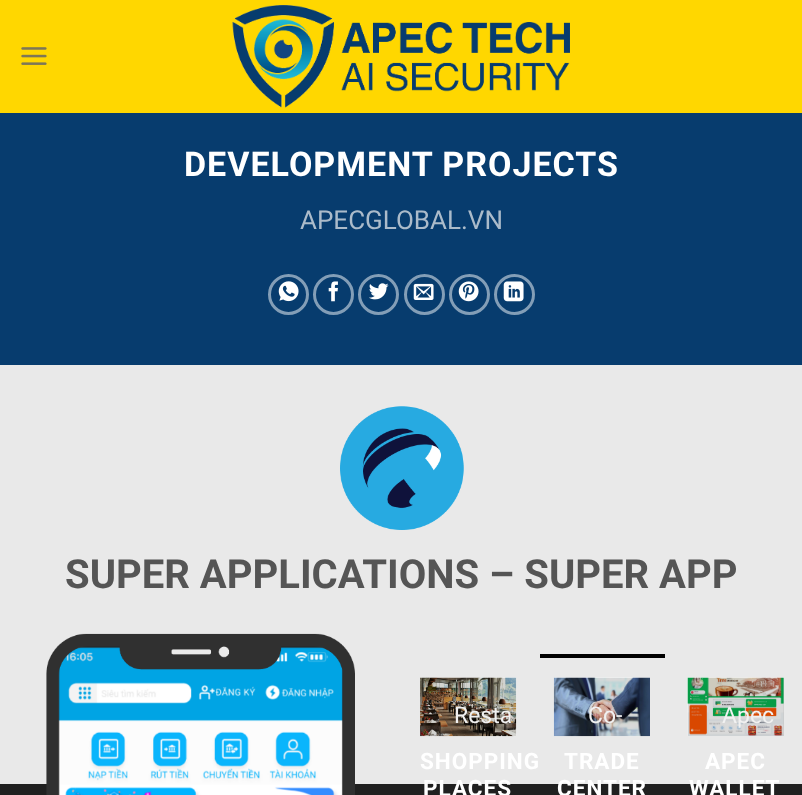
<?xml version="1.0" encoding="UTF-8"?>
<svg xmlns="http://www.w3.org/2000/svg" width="802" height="795">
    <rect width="100%" height="100%" fill="#073C6E"/>
    <rect x="0" y="0" width="802" height="113" fill="#FFD700"/>
    <image x="21" y="47" width="26" height="18" href="img_01.png"/>
    <image x="232" y="5" width="338" height="103" href="img_02.png"/>
    <text x="184" y="176" font-family="Roboto" font-size="34" font-weight="700" letter-spacing="1" fill="#FFFFFF">DEVELOPMENT PROJECTS</text>
    <text x="300" y="229" font-family="Roboto" font-size="26" fill="#ABBBCA">APECGLOBAL.VN</text>
    <circle cx="288.5" cy="294.5" r="19" fill="none" stroke="#839EB7" stroke-width="3"/>
    <image x="278" y="281" width="21" height="21" href="img_03.png"/>
    <circle cx="333.5" cy="294.5" r="19" fill="none" stroke="#839EB7" stroke-width="3"/>
    <image x="328" y="281" width="10" height="21" href="img_04.png"/>
    <circle cx="378.5" cy="294.5" r="19" fill="none" stroke="#839EB7" stroke-width="3"/>
    <image x="369" y="283" width="20" height="17" href="img_05.png"/>
    <circle cx="424.5" cy="294.5" r="19" fill="none" stroke="#839EB7" stroke-width="3"/>
    <image x="413" y="283" width="21" height="17" href="img_06.png"/>
    <circle cx="469.5" cy="294.5" r="19" fill="none" stroke="#839EB7" stroke-width="3"/>
    <image x="458" y="281" width="21" height="21" href="img_07.png"/>
    <circle cx="514.5" cy="294.5" r="19" fill="none" stroke="#839EB7" stroke-width="3"/>
    <image x="503" y="281" width="21" height="21" href="img_08.png"/>
    <rect x="0" y="365" width="802" height="419" fill="#E9E9E9"/>
    <rect x="783" y="678" width="1" height="58" fill="#C6C6C6"/>
    <image x="340" y="406" width="124" height="124" href="img_09.png"/>
    <text x="65" y="588" font-family="Roboto" font-size="40" font-weight="700" fill="#555555">SUPER APPLICATIONS – SUPER APP</text>
    <rect x="0" y="784" width="802" height="11" fill="#202020"/>
    <image x="46" y="633" width="309" height="162" href="img_10.png"/>
    <rect x="540" y="654" width="125" height="4" fill="#000000"/>
    <image x="420" y="677" width="97" height="60" href="img_11.png"/>
    <text x="454" y="723" font-family="Roboto" font-size="23" fill="#F1F1F1">Resta</text>
    <text x="420" y="769" font-family="Roboto" font-size="22.5" font-weight="700" letter-spacing="1" fill="#FFFFFF">SHOPPING</text>
    <text x="423" y="796" font-family="Roboto" font-size="22.5" font-weight="700" letter-spacing="1" fill="#FFFFFF">PLACES</text>
    <image x="553" y="677" width="97" height="60" href="img_12.png"/>
    <text x="588" y="723" font-family="Roboto" font-size="23" fill="#F1F1F1">Co-</text>
    <text x="564" y="769" font-family="Roboto" font-size="22.5" font-weight="700" letter-spacing="1" fill="#FFFFFF">TRADE</text>
    <text x="557" y="796" font-family="Roboto" font-size="22.5" font-weight="700" letter-spacing="1" fill="#FFFFFF">CENTER</text>
    <image x="687" y="677" width="97" height="59" href="img_13.png"/>
    <text x="722" y="723" font-family="Roboto" font-size="23" fill="#F1F1F1">Apec</text>
    <text x="705" y="769" font-family="Roboto" font-size="22.5" font-weight="700" letter-spacing="1" fill="#FFFFFF">APEC</text>
    <text x="689" y="796" font-family="Roboto" font-size="22.5" font-weight="700" letter-spacing="1" fill="#FFFFFF">WALLET</text>
</svg>
